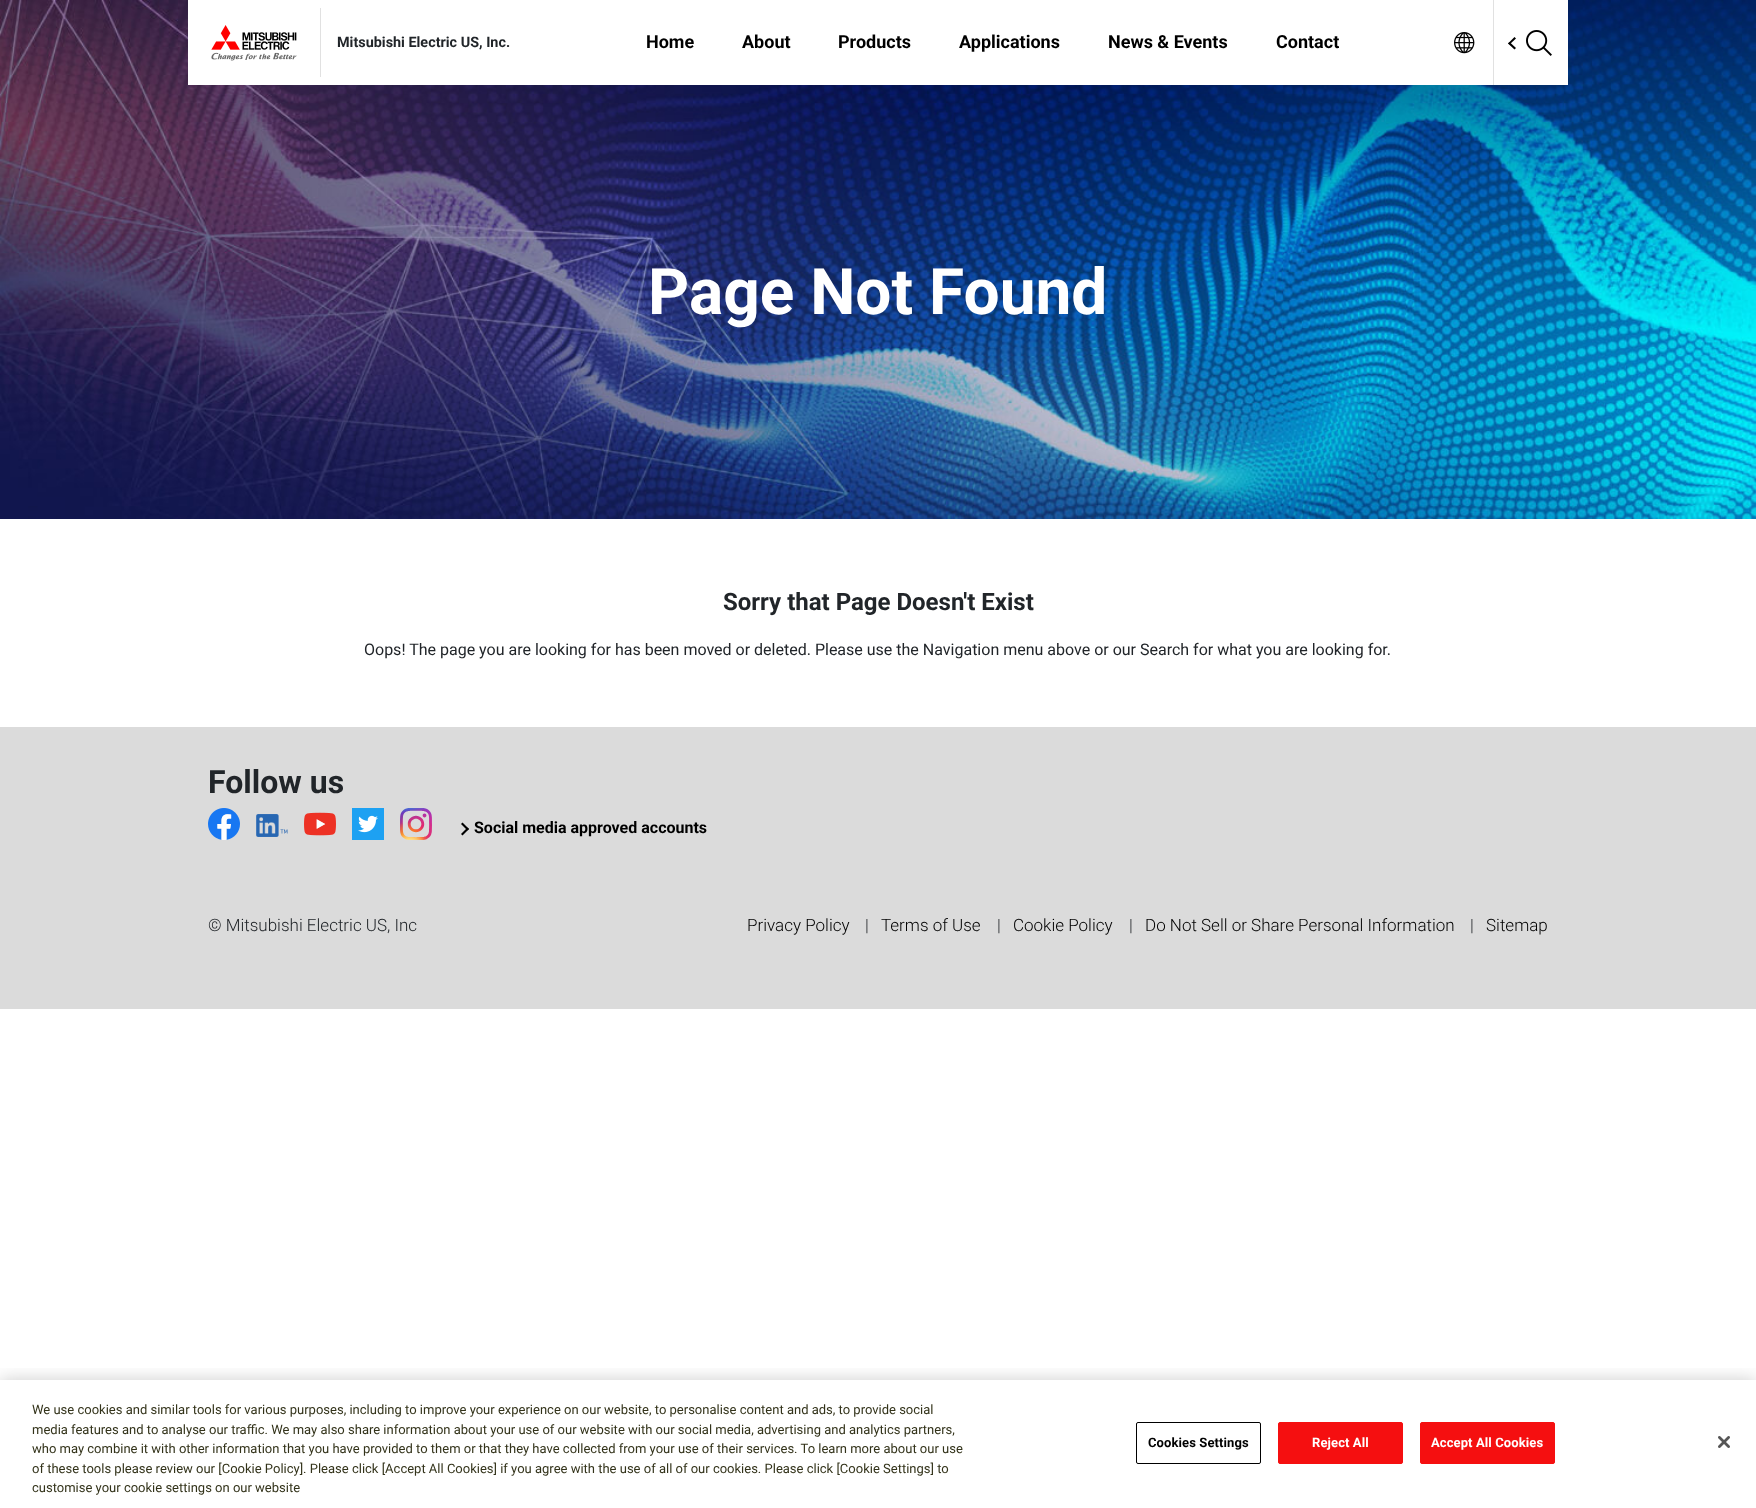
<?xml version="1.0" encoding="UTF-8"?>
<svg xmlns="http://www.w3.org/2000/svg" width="1756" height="1508">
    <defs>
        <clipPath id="clip1"><rect x="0" y="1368" width="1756" height="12"/></clipPath>
        <filter id="blur1" x="-50%" y="-200%" width="200%" height="500%"><feGaussianBlur stdDeviation="9"/></filter>
    </defs>
    <rect width="100%" height="100%" fill="#FFFFFF"/>
    <image x="0" y="0" width="1756" height="519" href="img_04.png"/>
    <rect x="188" y="0" width="1380" height="85" fill="#FFFFFF"/>
    <rect x="320" y="8" width="1" height="69" fill="#E1E1E1"/>
    <image x="211" y="25" width="86" height="36" href="img_01.png"/>
    <text x="337" y="47" font-family="Roboto" font-size="14.4" font-weight="700" fill="#212529">Mitsubishi Electric US, Inc.</text>
    <text x="646" y="48" font-family="Roboto" font-size="18" font-weight="700" fill="#000000">Home</text>
    <text x="742" y="48" font-family="Roboto" font-size="18" font-weight="700" fill="#000000">About</text>
    <text x="838" y="48" font-family="Roboto" font-size="18" font-weight="700" fill="#000000">Products</text>
    <text x="959" y="48" font-family="Roboto" font-size="18" font-weight="700" fill="#000000">Applications</text>
    <text x="1108" y="48" font-family="Roboto" font-size="18" font-weight="700" fill="#000000">News &amp; Events</text>
    <text x="1276" y="48" font-family="Roboto" font-size="18" font-weight="700" fill="#000000">Contact</text>
    <image x="1454" y="32" width="21" height="22" href="img_02.png"/>
    <rect x="1493" y="0" width="1" height="85" fill="#E1E1E1"/>
    <path d="M 1508 43.5 L 1514.5 37 L 1516 38.5 L 1509.5 44.5 Z" fill="#000000"/>
    <path d="M 1508 43.5 L 1509.5 42 L 1516 48 L 1514.5 49.5 Z" fill="#000000"/>
    <image x="1526" y="30" width="26" height="26" href="img_03.png"/>
    <text x="648" y="314" font-family="Roboto" font-size="64" font-weight="700" fill="#FFFFFF">Page Not Found</text>
    <text x="723" y="610" font-family="Roboto" font-size="24" font-weight="700" fill="#212529">Sorry that Page Doesn't Exist</text>
    <text x="364" y="655" font-family="Roboto" font-size="16" fill="#212529">Oops! The page you are looking for has been moved or deleted. Please use the Navigation menu above or our Search for what you are looking for.</text>
    <rect x="0" y="727" width="1756" height="282" fill="#DBDBDB"/>
    <text x="208" y="793" font-family="Roboto" font-size="32" font-weight="700" fill="#212529">Follow us</text>
    <image x="208" y="808" width="32" height="32" href="img_05.png"/>
    <image x="256" y="814" width="32" height="23" href="img_06.png"/>
    <image x="304" y="812" width="32" height="24" href="img_07.png"/>
    <image x="352" y="808" width="32" height="32" href="img_08.png"/>
    <image x="400" y="808" width="32" height="32" href="img_09.png"/>
    <path d="M 469 829 L 462.5 835.5 L 461 834 L 467.5 827.5 Z" fill="#000000"/>
    <path d="M 469 829 L 467.5 830.5 L 461 824 L 462.5 822.5 Z" fill="#000000"/>
    <text x="474" y="833" font-family="Roboto" font-size="16" font-weight="700" fill="#000000">Social media approved accounts</text>
    <text x="208" y="931" font-family="Roboto" font-size="17" font-weight="300" fill="#212529">© Mitsubishi Electric US, Inc</text>
    <text x="747" y="931" font-family="Roboto" font-size="17" font-weight="300" fill="#000000">Privacy Policy</text>
    <text x="865" y="931" font-family="Roboto" font-size="17" font-weight="300" fill="#212529">|</text>
    <text x="881" y="931" font-family="Roboto" font-size="17" font-weight="300" fill="#000000">Terms of Use</text>
    <text x="997" y="931" font-family="Roboto" font-size="17" font-weight="300" fill="#212529">|</text>
    <text x="1013" y="931" font-family="Roboto" font-size="17" font-weight="300" fill="#000000">Cookie Policy</text>
    <text x="1129" y="931" font-family="Roboto" font-size="17" font-weight="300" fill="#212529">|</text>
    <text x="1145" y="931" font-family="Roboto" font-size="17" font-weight="300" fill="#000000">Do Not Sell or Share Personal Information</text>
    <text x="1470" y="931" font-family="Roboto" font-size="17" font-weight="300" fill="#212529">|</text>
    <text x="1486" y="931" font-family="Roboto" font-size="17" font-weight="300" fill="#000000">Sitemap</text>
    <g clip-path="url(#clip1)">
        <rect x="0" y="1380" width="1756" height="128" fill="#000000" fill-opacity="0.2" filter="url(#blur1)"/>
    </g>
    <text font-family="Roboto" font-size="13" fill="#33331A">
        <tspan x="32" y="1414">We use cookies and similar tools for various purposes, including to improve your experience on our website, to personalise content and ads, to provide social</tspan>
        <tspan x="32" y="1434">media features and to analyse our traffic. We may also share information about your use of our website with our social media, advertising and analytics partners,</tspan>
        <tspan x="32" y="1453">who may combine it with other information that you have provided to them or that they have collected from your use of their services. To learn more about our use</tspan>
        <tspan x="32" y="1473">of these tools please review our [Cookie Policy]. Please click [Accept All Cookies] if you agree with the use of all of our cookies. Please click [Cookie Settings] to</tspan>
        <tspan x="32" y="1492">customise your cookie settings on our website</tspan>
    </text>
    <rect x="1136.5" y="1422.5" width="124" height="41" rx="1.5" fill="none" stroke="#000000"/>
    <text x="1148" y="1447" font-family="Roboto" font-size="13" font-weight="700" letter-spacing="0.1" fill="#000000">Cookies Settings</text>
    <rect x="1278.5" y="1422.5" width="124" height="41" rx="1.5" fill="#F50F10" stroke="#F50F10"/>
    <text x="1312" y="1447" font-family="Roboto" font-size="13" font-weight="700" letter-spacing="0.1" fill="#FFFFFF">Reject All</text>
    <rect x="1420.5" y="1422.5" width="134" height="41" rx="1.5" fill="#F50F10" stroke="#F50F10"/>
    <text x="1431" y="1447" font-family="Roboto" font-size="13" font-weight="700" letter-spacing="0.1" fill="#FFFFFF">Accept All Cookies</text>
    <image x="1718" y="1436" width="12" height="12" href="img_10.png"/>
</svg>
